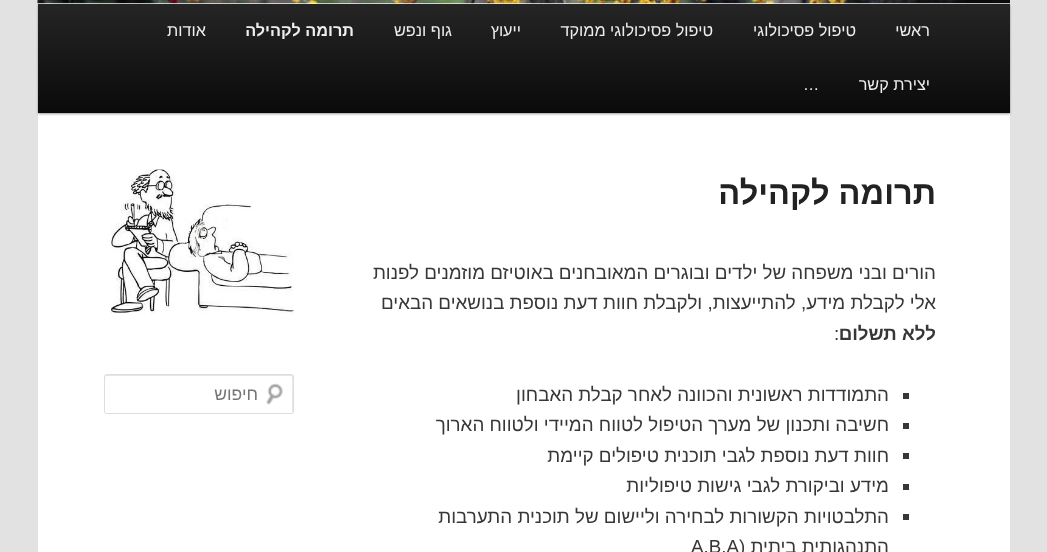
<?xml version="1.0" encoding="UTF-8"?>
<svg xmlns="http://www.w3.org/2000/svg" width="1047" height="552">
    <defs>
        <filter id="blur1" x="-50%" y="-200%" width="200%" height="500%"><feGaussianBlur stdDeviation="1"/></filter>
        <linearGradient id="g1" gradientUnits="userSpaceOnUse" x1="524" y1="3.7" x2="524" y2="113"><stop offset="0" stop-color="#252525"/><stop offset="1" stop-color="#0A0A0A"/></linearGradient>
    </defs>
    <rect width="100%" height="100%" fill="#E2E2E2"/>
    <rect x="38" y="3" width="972" height="549" fill="#FFFFFF"/>
    <rect x="38" y="5" width="972" height="109" fill="#000000" fill-opacity="0.4" filter="url(#blur1)"/>
    <image x="37" y="0" width="973" height="4" href="img_01.png"/>
    <rect x="38" y="4" width="972" height="109" fill="url(#g1)"/>
    <text x="930" y="36" font-family="Liberation Sans" font-size="16.25" direction="rtl" fill="#EEEEEE">ראשי</text>
    <text x="856" y="36" font-family="Liberation Sans" font-size="16.25" direction="rtl" fill="#EEEEEE">טיפול פסיכולוגי</text>
    <text x="713" y="36" font-family="Liberation Sans" font-size="16.25" direction="rtl" fill="#EEEEEE">טיפול פסיכולוגי ממוקד</text>
    <text x="521" y="36" font-family="Liberation Sans" font-size="16.25" direction="rtl" fill="#EEEEEE">ייעוץ</text>
    <text x="452" y="36" font-family="Liberation Sans" font-size="16.25" direction="rtl" fill="#EEEEEE">גוף ונפש</text>
    <text x="354" y="36" font-family="Liberation Sans" font-size="16.25" font-weight="700" direction="rtl" fill="#EEEEEE">תרומה לקהילה</text>
    <text x="206" y="36" font-family="Liberation Sans" font-size="16.25" direction="rtl" fill="#EEEEEE">אודות</text>
    <text x="930" y="90" font-family="Liberation Sans" font-size="16.25" direction="rtl" fill="#EEEEEE">יצירת קשר</text>
    <text x="803" y="90" font-family="Liberation Sans" font-size="16.25" fill="#EEEEEE">…</text>
    <text x="936" y="204" font-family="Liberation Sans" font-size="32.5" font-weight="700" direction="rtl" fill="#222222">תרומה לקהילה</text>
    <text font-family="Liberation Sans" font-size="18.75" direction="rtl" fill="#373737">
        <tspan x="936" y="279">הורים ובני משפחה של ילדים ובוגרים המאובחנים באוטיזם מוזמנים לפנות</tspan>
        <tspan x="936" y="309">אלי לקבלת מידע, להתייעצות, ולקבלת חוות דעת נוספת בנושאים הבאים</tspan>
    </text>
    <text x="936" y="340" font-family="Liberation Sans" font-size="18.75" font-weight="700" direction="rtl" fill="#373737">ללא תשלום</text>
    <text x="834" y="340" font-family="Liberation Sans" font-size="18.75" fill="#373737">:</text>
    <rect x="903" y="393" width="6" height="6" fill="#373737"/>
    <text x="889" y="401" font-family="Liberation Sans" font-size="18.75" direction="rtl" fill="#373737">התמודדות ראשונית והכוונה לאחר קבלת האבחון</text>
    <rect x="903" y="423" width="6" height="6" fill="#373737"/>
    <text x="889" y="431" font-family="Liberation Sans" font-size="18.75" direction="rtl" fill="#373737">חשיבה ותכנון של מערך הטיפול לטווח המיידי ולטווח הארוך</text>
    <rect x="903" y="453" width="6" height="6" fill="#373737"/>
    <text x="889" y="462" font-family="Liberation Sans" font-size="18.75" direction="rtl" fill="#373737">חוות דעת נוספת לגבי תוכנית טיפולים קיימת</text>
    <rect x="903" y="484" width="6" height="6" fill="#373737"/>
    <text x="889" y="492" font-family="Liberation Sans" font-size="18.75" direction="rtl" fill="#373737">מידע וביקורת לגבי גישות טיפוליות</text>
    <rect x="903" y="514" width="6" height="6" fill="#373737"/>
    <text font-family="Liberation Sans" font-size="18.75" direction="rtl" fill="#373737">
        <tspan x="889" y="523">התלבטויות הקשורות לבחירה וליישום של תוכנית התערבות</tspan>
        <tspan x="889" y="553">התנהגותית ביתית (</tspan>
    </text>
    <text x="691" y="553" font-family="Liberation Sans" font-size="18.75" fill="#373737">A.B.A</text>
    <image x="111" y="169" width="183" height="145" href="img_02.png"/>
    <image x="266" y="383" width="17" height="22" href="img_03.png"/>
    <path d="M 106 376 H 291 C 293 376 292 387 292 389 V 413 L 293 412 V 382 C 293 380 294 375 292 375 H 106 C 105 375 105 377 105 378 Z" fill="#E6E6E6"/>
    <rect x="104.5" y="374.5" width="189" height="39" rx="2" fill="none" stroke="#DDDDDD"/>
    <text x="258" y="400" font-family="Liberation Sans" font-size="17.5" direction="rtl" fill="#757575">חיפוש</text>
</svg>
